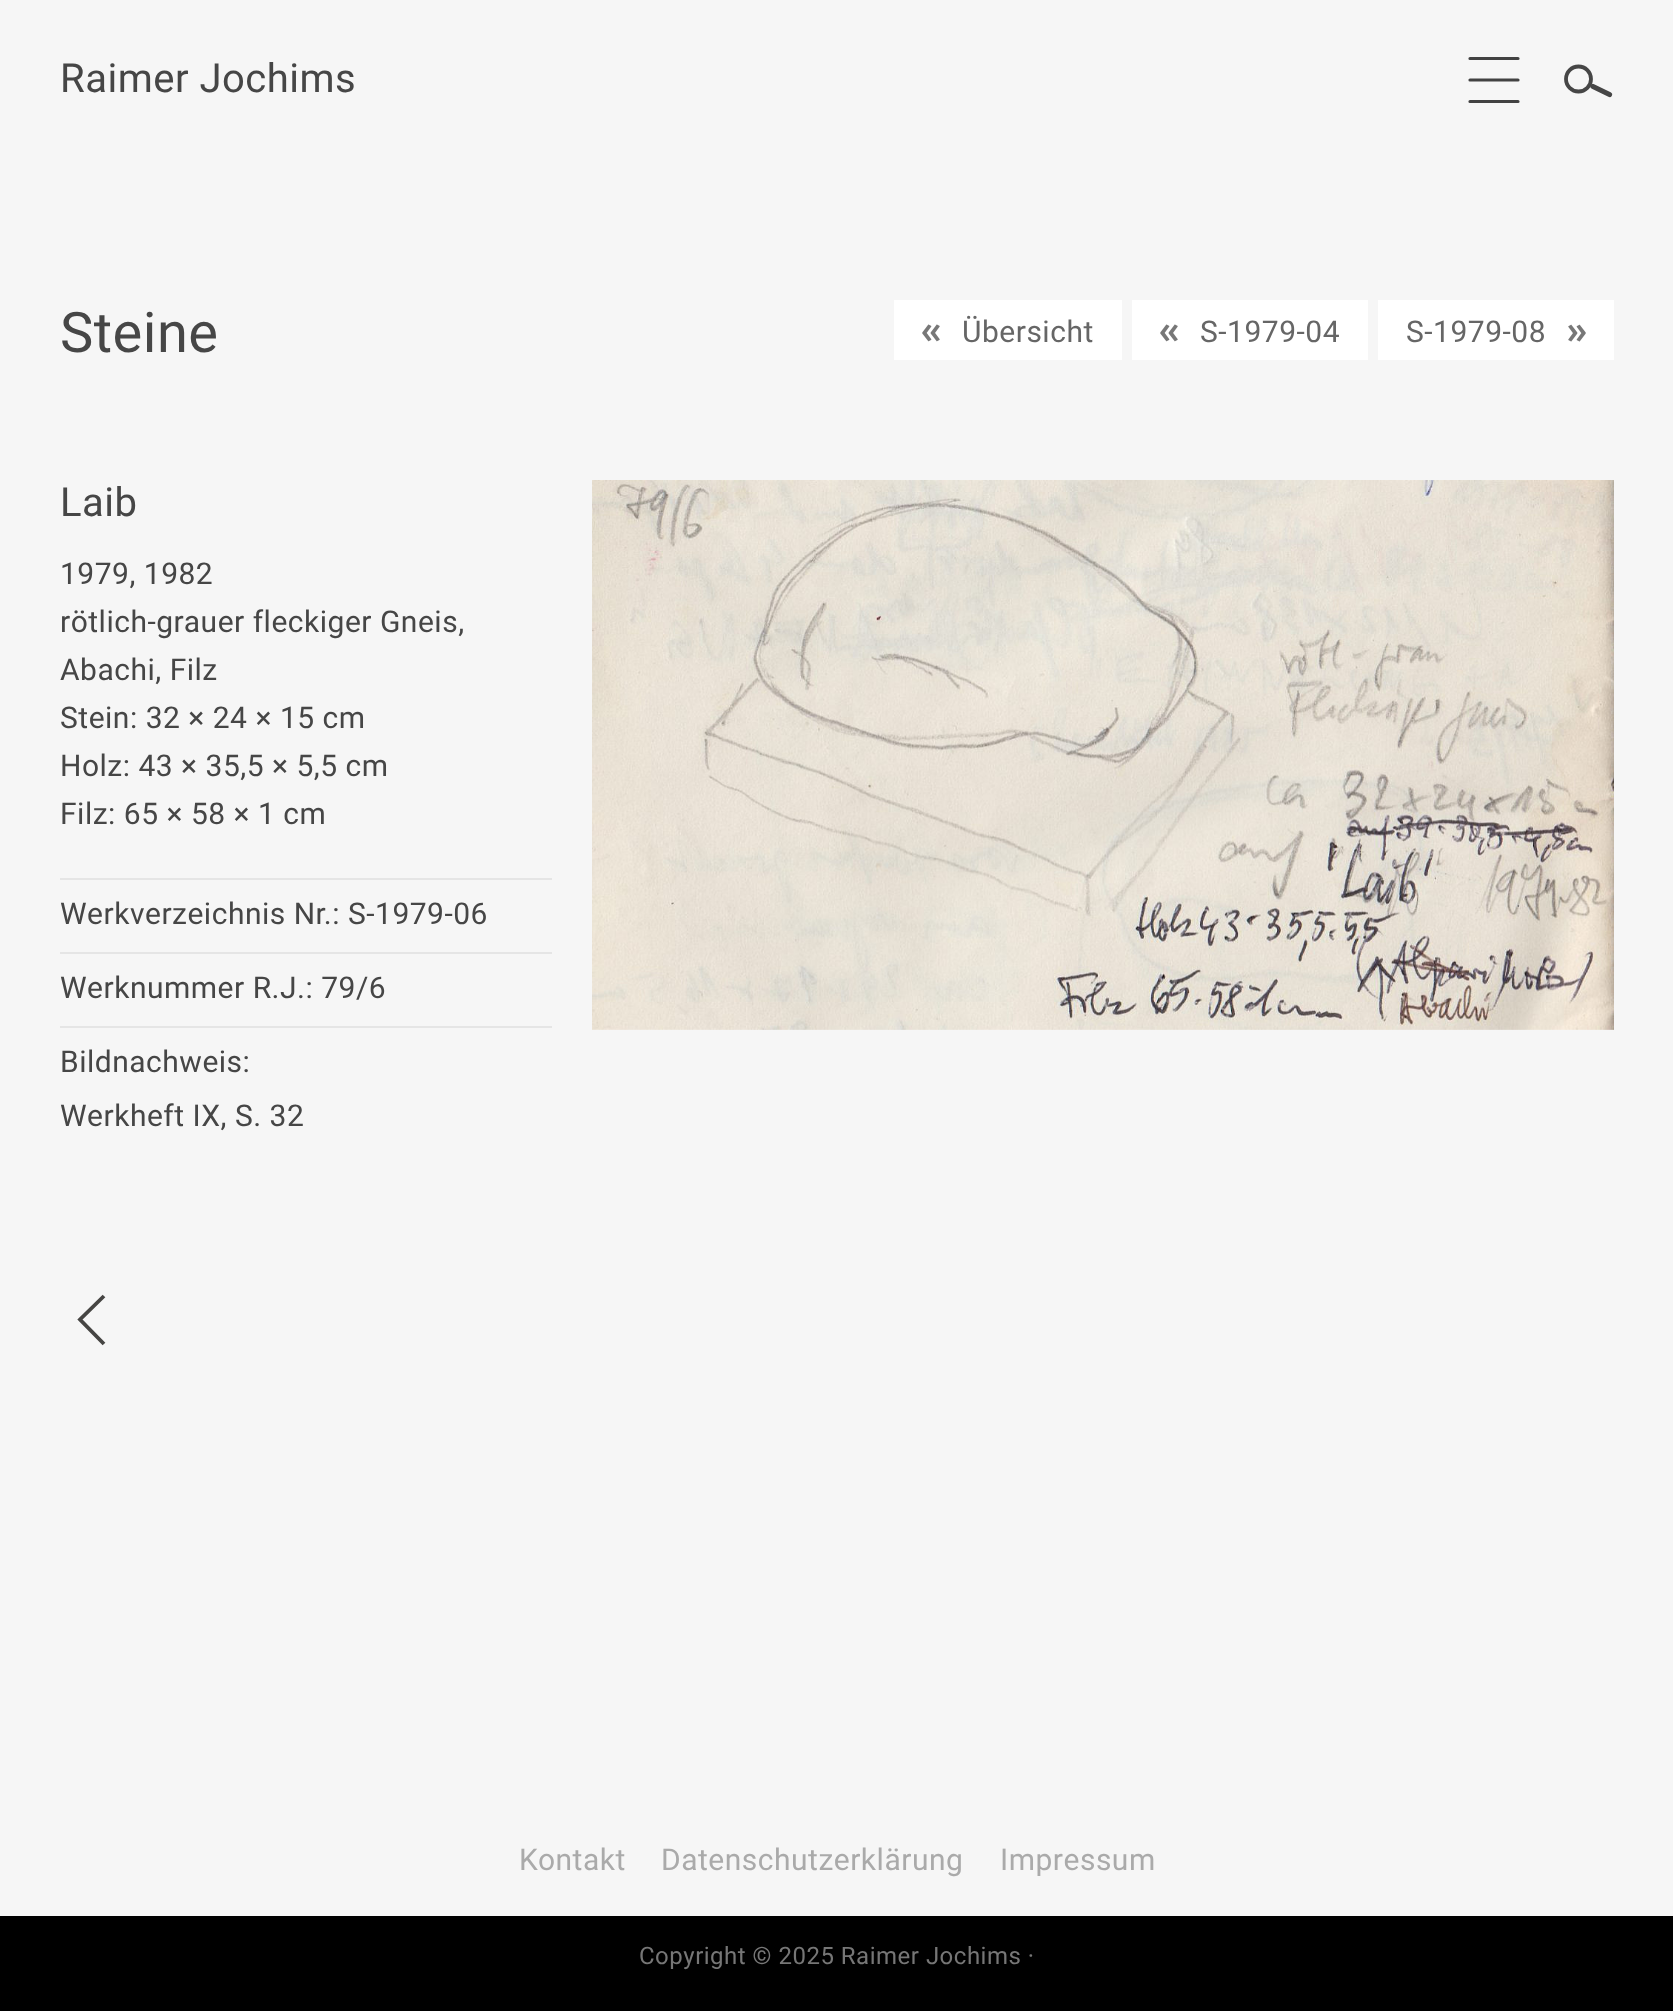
<?xml version="1.0" encoding="UTF-8"?>
<svg xmlns="http://www.w3.org/2000/svg" width="1673" height="2011">
    <rect width="100%" height="100%" fill="#F6F6F6"/>
    <text x="60" y="92" font-family="Heebo" font-size="40" letter-spacing="0.5" fill="#464646">Raimer Jochims</text>
    <path d="M 1470 58.5 H 1518 M 1470 80 H 1518 M 1470 101.5 H 1518" fill="none" stroke="#424242" stroke-width="3.2" stroke-linecap="round"/>
    <circle cx="1578.5" cy="79" r="12.5" fill="none" stroke="#464646" stroke-width="3.8"/>
    <path d="M 1593 86.5 L 1609.5 94.5" fill="none" stroke="#464646" stroke-width="5.2" stroke-linecap="round"/>
    <text x="60" y="352" font-family="Heebo" font-size="56" letter-spacing="0.5" fill="#464646">Steine</text>
    <rect x="894" y="300" width="228" height="60" fill="#FFFFFF"/>
    <image x="922" y="324" width="18" height="18" href="img_01.png"/>
    <text x="962" y="342" font-family="Heebo" font-size="30" letter-spacing="0.5" fill="#666666">Übersicht</text>
    <rect x="1132" y="300" width="236" height="60" fill="#FFFFFF"/>
    <image x="1160" y="324" width="18" height="18" href="img_01.png"/>
    <text x="1200" y="342" font-family="Heebo" font-size="30" letter-spacing="0.5" fill="#666666">S-1979-04</text>
    <rect x="1378" y="300" width="236" height="60" fill="#FFFFFF"/>
    <text x="1406" y="342" font-family="Heebo" font-size="30" letter-spacing="0.5" fill="#666666">S-1979-08</text>
    <image x="1568" y="324" width="18" height="18" href="img_02.png"/>
    <text x="60" y="516" font-family="Heebo" font-size="40" letter-spacing="0.5" fill="#464646">Laib</text>
    <text font-family="Heebo" font-size="30" letter-spacing="0.5" fill="#464646">
        <tspan x="60" y="584">1979, 1982</tspan>
        <tspan x="60" y="632">rötlich-grauer fleckiger Gneis,</tspan>
        <tspan x="60" y="680">Abachi, Filz</tspan>
        <tspan x="60" y="728">Stein: 32 × 24 × 15 cm</tspan>
        <tspan x="60" y="776">Holz: 43 × 35,5 × 5,5 cm</tspan>
        <tspan x="60" y="824">Filz: 65 × 58 × 1 cm</tspan>
    </text>
    <rect x="60" y="878" width="492" height="2" fill="#E5E5E5"/>
    <rect x="60" y="952" width="492" height="2" fill="#E5E5E5"/>
    <text x="60" y="924" font-family="Heebo" font-size="30" letter-spacing="0.5" fill="#464646">Werkverzeichnis Nr.: S-1979-06</text>
    <rect x="60" y="1026" width="492" height="2" fill="#E5E5E5"/>
    <text x="60" y="998" font-family="Heebo" font-size="30" letter-spacing="0.5" fill="#464646">Werknummer R.J.: 79/6</text>
    <text font-family="Heebo" font-size="30" letter-spacing="0.5" fill="#464646">
        <tspan x="60" y="1072">Bildnachweis:</tspan>
        <tspan x="60" y="1126">Werkheft IX, S. 32</tspan>
    </text>
    <image x="592" y="480" width="1022" height="550" href="img_03.png"/>
    <path d="M 104 1344 L 80 1319.5 L 104 1296" fill="none" stroke="#464543" stroke-width="3.8"/>
    <text x="519" y="1870" font-family="Heebo" font-size="30" letter-spacing="0.5" fill="#AAAAAA">Kontakt</text>
    <text x="661" y="1870" font-family="Heebo" font-size="30" letter-spacing="0.5" fill="#AAAAAA">Datenschutzerklärung</text>
    <text x="1000" y="1870" font-family="Heebo" font-size="30" letter-spacing="0.5" fill="#AAAAAA">Impressum</text>
    <rect x="0" y="1916" width="1673" height="95" fill="#000000"/>
    <text x="639" y="1964" font-family="Heebo" font-size="24" letter-spacing="0.5" fill="#767676">Copyright © 2025 Raimer Jochims ·</text>
</svg>
